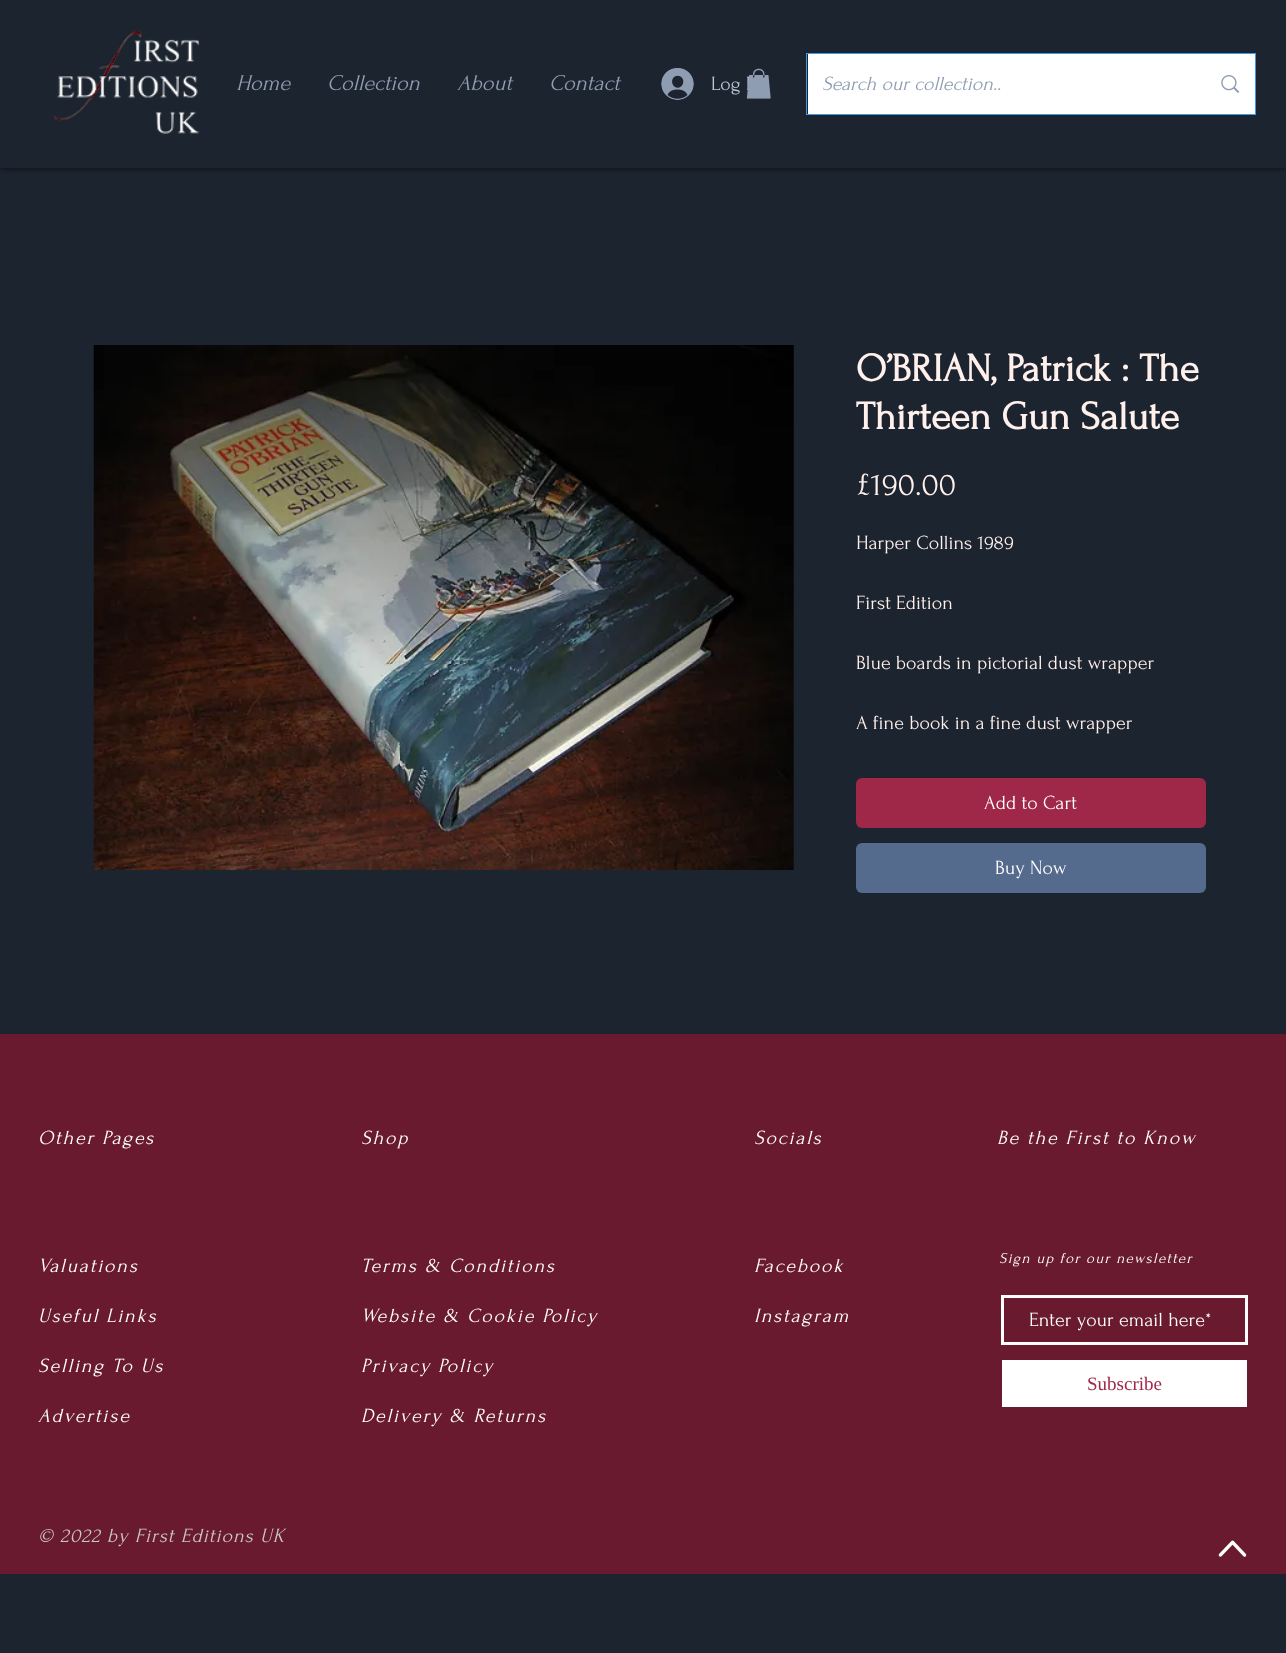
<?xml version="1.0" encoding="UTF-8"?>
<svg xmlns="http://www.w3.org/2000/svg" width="1286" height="1653">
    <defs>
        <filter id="blur1" x="-50%" y="-200%" width="200%" height="500%"><feGaussianBlur stdDeviation="3"/></filter>
    </defs>
    <rect width="100%" height="100%" fill="#1C242F"/>
    <rect x="0" y="0" width="1286" height="168" fill="#000000" fill-opacity="0.7" filter="url(#blur1)"/>
    <rect x="0" y="0" width="1286" height="168" fill="#1C242F"/>
    <image x="53" y="30" width="147" height="104" href="img_01.png"/>
    <text x="236" y="90" font-family="Forum" font-size="22.5" font-style="italic" fill="#8F9DB3">Home</text>
    <text x="327" y="90" font-family="Forum" font-size="22.5" font-style="italic" fill="#8F9DB3">Collection</text>
    <text x="457" y="90" font-family="Forum" font-size="22.5" font-style="italic" fill="#8F9DB3">About</text>
    <text x="549" y="90" font-family="Forum" font-size="22.5" font-style="italic" fill="#8F9DB3">Contact</text>
    <image x="661" y="68" width="33" height="32" href="img_02.png"/>
    <text x="711" y="90" font-family="Forum" font-size="20" fill="#BCC8D9">Log I</text>
    <image x="746" y="68" width="25" height="31" href="img_03.png"/>
    <rect x="806.5" y="53.5" width="449" height="61" fill="none" stroke="#3D9BE9"/>
    <rect x="808" y="54" width="447" height="60" fill="#FFFFFF"/>
    <text x="822" y="90" font-family="Forum" font-size="20" font-style="italic" fill="#8F9DB3">Search our collection..</text>
    <image x="1221" y="75" width="19" height="18" href="img_04.png"/>
    <image x="93" y="345" width="701" height="525" href="img_05.png"/>
    <text font-family="Forum" font-size="40" font-weight="700" fill="#FFF0EB">
        <tspan x="856" y="381">O’BRIAN, Patrick : The</tspan>
        <tspan x="856" y="429">Thirteen Gun Salute</tspan>
    </text>
    <text x="856" y="495" font-family="Forum" font-size="32.5" fill="#FFF0EB">£190.00</text>
    <text x="856" y="549" font-family="Forum" font-size="20" fill="#FFF0EB">Harper Collins 1989</text>
    <text x="856" y="609" font-family="Forum" font-size="20" fill="#FFF0EB">First Edition</text>
    <text x="856" y="669" font-family="Forum" font-size="20" fill="#FFF0EB">Blue boards in pictorial dust wrapper</text>
    <text x="856" y="729" font-family="Forum" font-size="20" fill="#FFF0EB">A fine book in a fine dust wrapper</text>
    <rect x="856" y="778" width="350" height="50" rx="6" fill="#9F2747"/>
    <text x="984" y="809" font-family="Forum" font-size="20" fill="#FFFFFF">Add to Cart</text>
    <rect x="856" y="843" width="350" height="50" rx="6" fill="#556B8D"/>
    <text x="995" y="874" font-family="Forum" font-size="20" fill="#FFFFFF">Buy Now</text>
    <rect x="0" y="1034" width="1286" height="540" fill="#6A1A2F"/>
    <text x="38" y="1144" font-family="Forum" font-size="20" font-style="italic" letter-spacing="1.8" fill="#FFFFFF">Other Pages</text>
    <text x="361" y="1144" font-family="Forum" font-size="20" font-style="italic" letter-spacing="1.8" fill="#FFFFFF">Shop</text>
    <text x="754" y="1144" font-family="Forum" font-size="20" font-style="italic" letter-spacing="1.8" fill="#FFFFFF">Socials</text>
    <text x="997" y="1144" font-family="Forum" font-size="20" font-style="italic" letter-spacing="1.8" fill="#FFFFFF">Be the First to Know</text>
    <text x="38" y="1272" font-family="Forum" font-size="20" font-style="italic" letter-spacing="1.8" fill="#FFFFFF">Valuations</text>
    <text x="38" y="1322" font-family="Forum" font-size="20" font-style="italic" letter-spacing="1.8" fill="#FFFFFF">Useful Links</text>
    <text x="38" y="1372" font-family="Forum" font-size="20" font-style="italic" letter-spacing="1.8" fill="#FFFFFF">Selling To Us</text>
    <text x="38" y="1422" font-family="Forum" font-size="20" font-style="italic" letter-spacing="1.8" fill="#FFFFFF">Advertise</text>
    <text x="361" y="1272" font-family="Forum" font-size="20" font-style="italic" letter-spacing="1.8" fill="#FFFFFF">Terms &amp; Conditions</text>
    <text x="361" y="1322" font-family="Forum" font-size="20" font-style="italic" letter-spacing="1.8" fill="#FFFFFF">Website &amp; Cookie Policy</text>
    <text x="361" y="1372" font-family="Forum" font-size="20" font-style="italic" letter-spacing="1.8" fill="#FFFFFF">Privacy Policy</text>
    <text x="361" y="1422" font-family="Forum" font-size="20" font-style="italic" letter-spacing="1.8" fill="#FFFFFF">Delivery &amp; Returns</text>
    <text x="754" y="1272" font-family="Forum" font-size="20" font-style="italic" letter-spacing="1.8" fill="#FFFFFF">Facebook</text>
    <text x="754" y="1322" font-family="Forum" font-size="20" font-style="italic" letter-spacing="1.8" fill="#FFFFFF">Instagram</text>
    <text x="999" y="1263" font-family="Forum" font-size="15" font-style="italic" letter-spacing="1.35" fill="#FFFFFF">Sign up for our newsletter</text>
    <rect x="1002.5" y="1296.5" width="244" height="47" fill="none" stroke="#FFFFFF" stroke-width="3"/>
    <text x="1029" y="1326" font-family="Forum" font-size="20" fill="#FFFFFF">Enter your email here*</text>
    <rect x="1002" y="1360" width="245" height="47" fill="#FFFFFF"/>
    <text x="1087" y="1390" font-family="Liberation Serif" font-size="19" fill="#9F2747">Subscribe</text>
    <text x="38" y="1542" font-family="Forum" font-size="20" font-style="italic" letter-spacing="1" fill="#C7C7C7">© 2022 by First Editions UK</text>
    <image x="1218" y="1540" width="29" height="17" href="img_06.png"/>
</svg>
